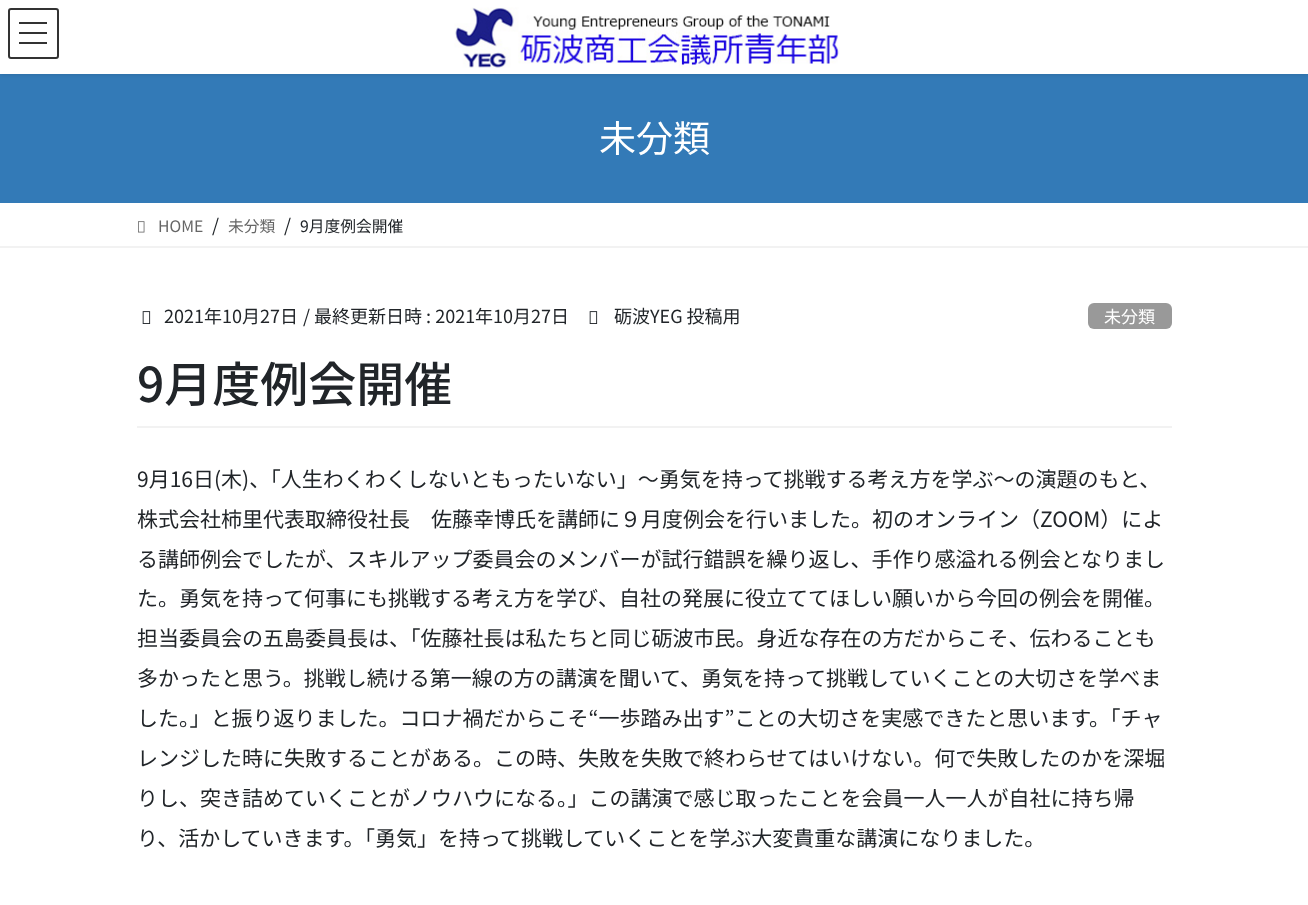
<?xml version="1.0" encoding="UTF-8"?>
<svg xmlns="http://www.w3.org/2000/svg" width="1308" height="905">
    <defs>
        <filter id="blur1" x="-50%" y="-200%" width="200%" height="500%"><feGaussianBlur stdDeviation="2"/></filter>
    </defs>
    <rect width="100%" height="100%" fill="#FFFFFF"/>
    <rect x="0" y="74" width="1308" height="129" fill="#337AB7"/>
    <rect x="0" y="2" width="1308" height="73" fill="#000000" fill-opacity="0.1" filter="url(#blur1)"/>
    <rect x="0" y="0" width="1308" height="74" fill="#FFFFFF"/>
    <image x="454" y="7" width="386" height="61" href="img_01.png"/>
    <rect x="19" y="22" width="28" height="2" fill="#333333"/>
    <rect x="19" y="32" width="28" height="2" fill="#333333"/>
    <rect x="19" y="42" width="28" height="2" fill="#333333"/>
    <rect x="9" y="9" width="49" height="49" rx="2" fill="none" stroke="#333333" stroke-width="2"/>
    <text x="599" y="152" font-family="Noto Sans JP" font-size="37" fill="#FFFFFF">未分類</text>
    <rect x="0" y="246" width="1308" height="2" fill="#F2F2F2"/>
    <image x="138" y="221" width="7" height="12" href="img_02.png"/>
    <text x="158" y="232" font-family="Noto Sans JP" font-size="15.75" fill="#666666">HOME</text>
    <text x="212" y="232" font-family="Noto Sans JP" font-size="18" fill="#212529">/</text>
    <text x="228" y="232" font-family="Noto Sans JP" font-size="15.75" fill="#666666">未分類</text>
    <text x="284" y="232" font-family="Noto Sans JP" font-size="18" fill="#212529">/</text>
    <text x="300" y="232" font-family="Noto Sans JP" font-size="15.75" fill="#212529">9月度例会開催</text>
    <rect x="137" y="426" width="1035" height="2" fill="#F2F2F2"/>
    <image x="142" y="311" width="9" height="13" href="img_03.png"/>
    <text x="164" y="323" font-family="Noto Sans JP" font-size="18" fill="#212529">2021年10月27日</text>
    <text x="303" y="323" font-family="Noto Sans JP" font-size="18" fill="#212529">/ 最終更新日時 : 2021年10月27日</text>
    <image x="589" y="311" width="9" height="13" href="img_03.png"/>
    <text x="614" y="323" font-family="Noto Sans JP" font-size="18" fill="#212529">砺波YEG 投稿用</text>
    <rect x="1088" y="303" width="84" height="26" rx="6" fill="#999999"/>
    <text x="1104" y="323" font-family="Noto Sans JP" font-size="17" fill="#FFFFFF">未分類</text>
    <text x="137" y="402" font-family="Noto Sans JP" font-size="48" font-weight="500" fill="#212529">9月度例会開催</text>
    <text font-family="Noto Sans JP" font-size="21" fill="#212529">
        <tspan x="137" y="487">9月16日(木)、「人生わくわくしないともったいない」～勇気を持って挑戦する考え方を学ぶ～の演題のもと、</tspan>
        <tspan x="137" y="527">株式会社柿里代表取締役社長　佐藤幸博氏を講師に９月度例会を行いました。初のオンライン（ZOOM）によ</tspan>
        <tspan x="137" y="567">る講師例会でしたが、スキルアップ委員会のメンバーが試行錯誤を繰り返し、手作り感溢れる例会となりまし</tspan>
        <tspan x="137" y="606">た。勇気を持って何事にも挑戦する考え方を学び、自社の発展に役立ててほしい願いから今回の例会を開催。</tspan>
        <tspan x="137" y="646">担当委員会の五島委員長は、「佐藤社長は私たちと同じ砺波市民。身近な存在の方だからこそ、伝わることも</tspan>
        <tspan x="137" y="686">多かったと思う。挑戦し続ける第一線の方の講演を聞いて、勇気を持って挑戦していくことの大切さを学べま</tspan>
        <tspan x="137" y="726">した。」と振り返りました。コロナ禍だからこそ“一歩踏み出す”ことの大切さを実感できたと思います。「チャ</tspan>
        <tspan x="137" y="766">レンジした時に失敗することがある。この時、失敗を失敗で終わらせてはいけない。何で失敗したのかを深堀</tspan>
        <tspan x="137" y="806">りし、突き詰めていくことがノウハウになる。」この講演で感じ取ったことを会員一人一人が自社に持ち帰</tspan>
        <tspan x="137" y="846">り、活かしていきます。「勇気」を持って挑戦していくことを学ぶ大変貴重な講演になりました。</tspan>
    </text>
</svg>
